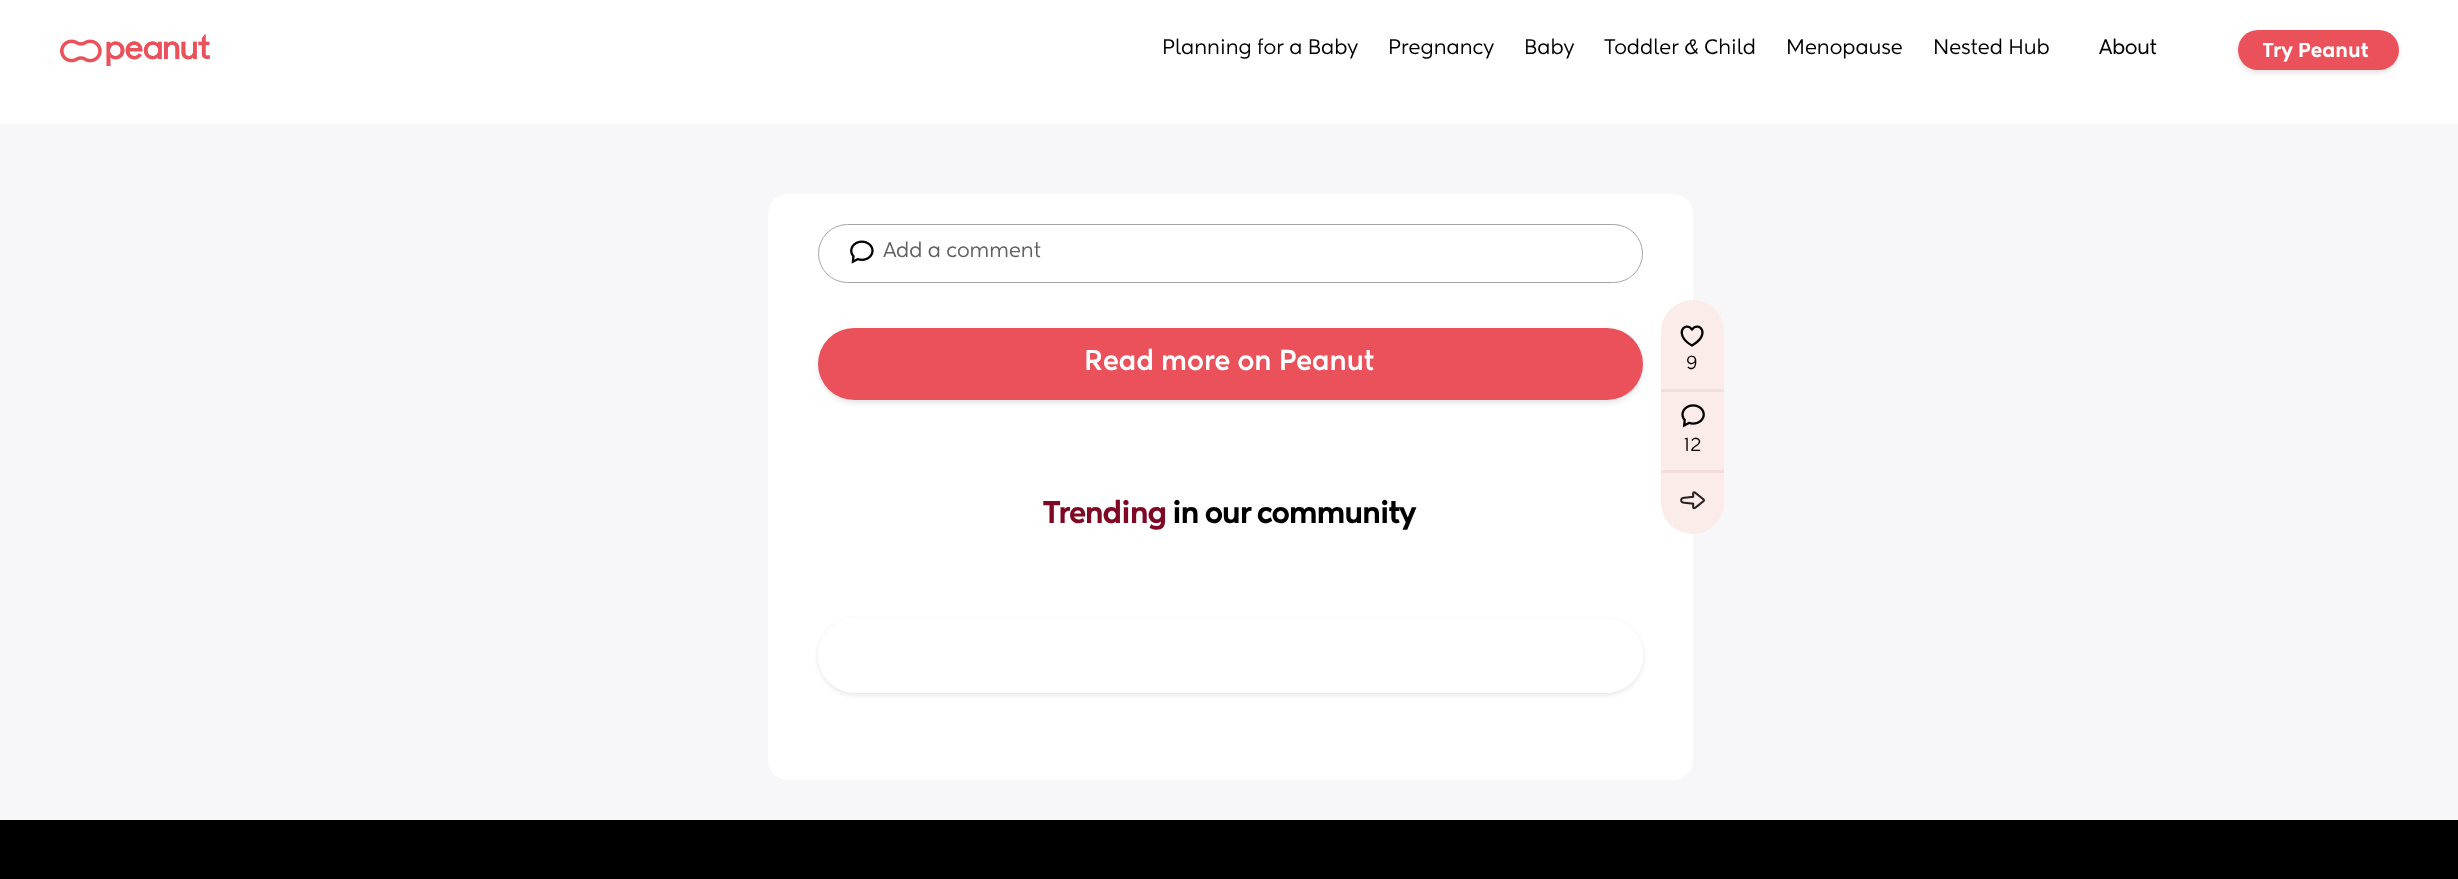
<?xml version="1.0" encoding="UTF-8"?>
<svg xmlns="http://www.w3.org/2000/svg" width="2458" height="879">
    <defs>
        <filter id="blur1" x="-50%" y="-200%" width="200%" height="500%"><feGaussianBlur stdDeviation="2.5"/></filter>
        <clipPath id="clip1"><rect x="2263" y="43" width="111" height="20"/></clipPath>
        <clipPath id="clip2"><path d="M 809 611 H 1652 V 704 H 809 Z M 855.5 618 H 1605.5 C 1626 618 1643 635 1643 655.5 C 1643 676 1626 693 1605.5 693 H 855.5 C 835 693 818 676 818 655.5 C 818 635 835 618 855.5 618 Z" clip-rule="evenodd"/></clipPath>
    </defs>
    <rect width="100%" height="100%" fill="#FFFFFF"/>
    <image x="60" y="34" width="150" height="32" href="img_01.png"/>
    <text x="1162" y="54" font-family="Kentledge" font-size="20" fill="#000000">Planning for a Baby</text>
    <text x="1388" y="54" font-family="Kentledge" font-size="20" fill="#000000">Pregnancy</text>
    <text x="1524" y="54" font-family="Kentledge" font-size="20" fill="#000000">Baby</text>
    <text x="1604" y="54" font-family="Kentledge" font-size="20" fill="#000000">Toddler &amp; Child</text>
    <text x="1786" y="54" font-family="Kentledge" font-size="20" fill="#000000">Menopause</text>
    <text x="1933" y="54" font-family="Kentledge" font-size="20" fill="#000000">Nested Hub</text>
    <text x="2099" y="54" font-family="Kentledge" font-size="20" font-weight="500" fill="#000000">About</text>
    <rect x="2238" y="33" width="161" height="40" rx="20" fill="#000000" fill-opacity="0.1" filter="url(#blur1)"/>
    <rect x="2238" y="30" width="161" height="40" rx="20" fill="#EA515A"/>
    <g clip-path="url(#clip1)">
        <text x="2262" y="57" font-family="Kentledge" font-size="20" font-weight="900" fill="#FFFFFF">Try Peanut</text>
    </g>
    <rect x="0" y="124" width="2458" height="696" fill="#F7F7F9"/>
    <rect x="768" y="194" width="925" height="586" rx="20" fill="#FFFFFF"/>
    <rect x="818.5" y="224.5" width="824" height="58" rx="29" fill="none" stroke="#A6A6A6"/>
    <image x="850" y="240" width="24" height="24" href="img_02.png"/>
    <text x="883" y="257" font-family="Kentledge" font-size="20" fill="#616161">Add a comment</text>
    <rect x="818" y="330" width="825" height="73" rx="36.5" fill="#000000" fill-opacity="0.1" filter="url(#blur1)"/>
    <rect x="818" y="328" width="825" height="72" rx="36" fill="#EA515A"/>
    <text x="1084" y="370" font-family="Kentledge" font-size="27.5" font-weight="800" fill="#FFFFFF">Read more on Peanut</text>
    <text x="1043" y="523" font-family="Kentledge" font-size="30" font-weight="900" letter-spacing="-1.25" fill="#7F0924">Trending</text>
    <text x="1172" y="523" font-family="Kentledge" font-size="30" font-weight="900" letter-spacing="-1.25" fill="#000000">in our community</text>
    <g clip-path="url(#clip2)">
        <rect x="818" y="620" width="825" height="75" rx="37.5" fill="#000000" fill-opacity="0.1" filter="url(#blur1)"/>
    </g>
    <rect x="820" y="620" width="821" height="71" rx="35.5" fill="none" stroke="#FFFFFF" stroke-width="4"/>
    <rect x="1661" y="300" width="63" height="234" rx="31.5" fill="#FBECEA"/>
    <rect x="1661" y="389" width="63" height="3" fill="#F3DDDA"/>
    <path d="M 1692 345.5 C 1712 334 1698.5 320.5 1692 329.5 C 1685.5 320.5 1672.5 334 1692 345.5" fill="none" stroke="#000000" stroke-width="2.2" stroke-linecap="round" stroke-linejoin="round"/>
    <text x="1686" y="369" font-family="Kentledge" font-size="18" fill="#000000">9</text>
    <rect x="1661" y="470" width="63" height="3" fill="#F3DDDA"/>
    <image x="1681" y="404" width="24" height="24" href="img_03.png"/>
    <text x="1683" y="451" font-family="Kentledge" font-size="18" fill="#000000">12</text>
    <image x="1680" y="491" width="25" height="18" href="img_04.png"/>
    <rect x="0" y="820" width="2458" height="59" fill="#000000"/>
</svg>
